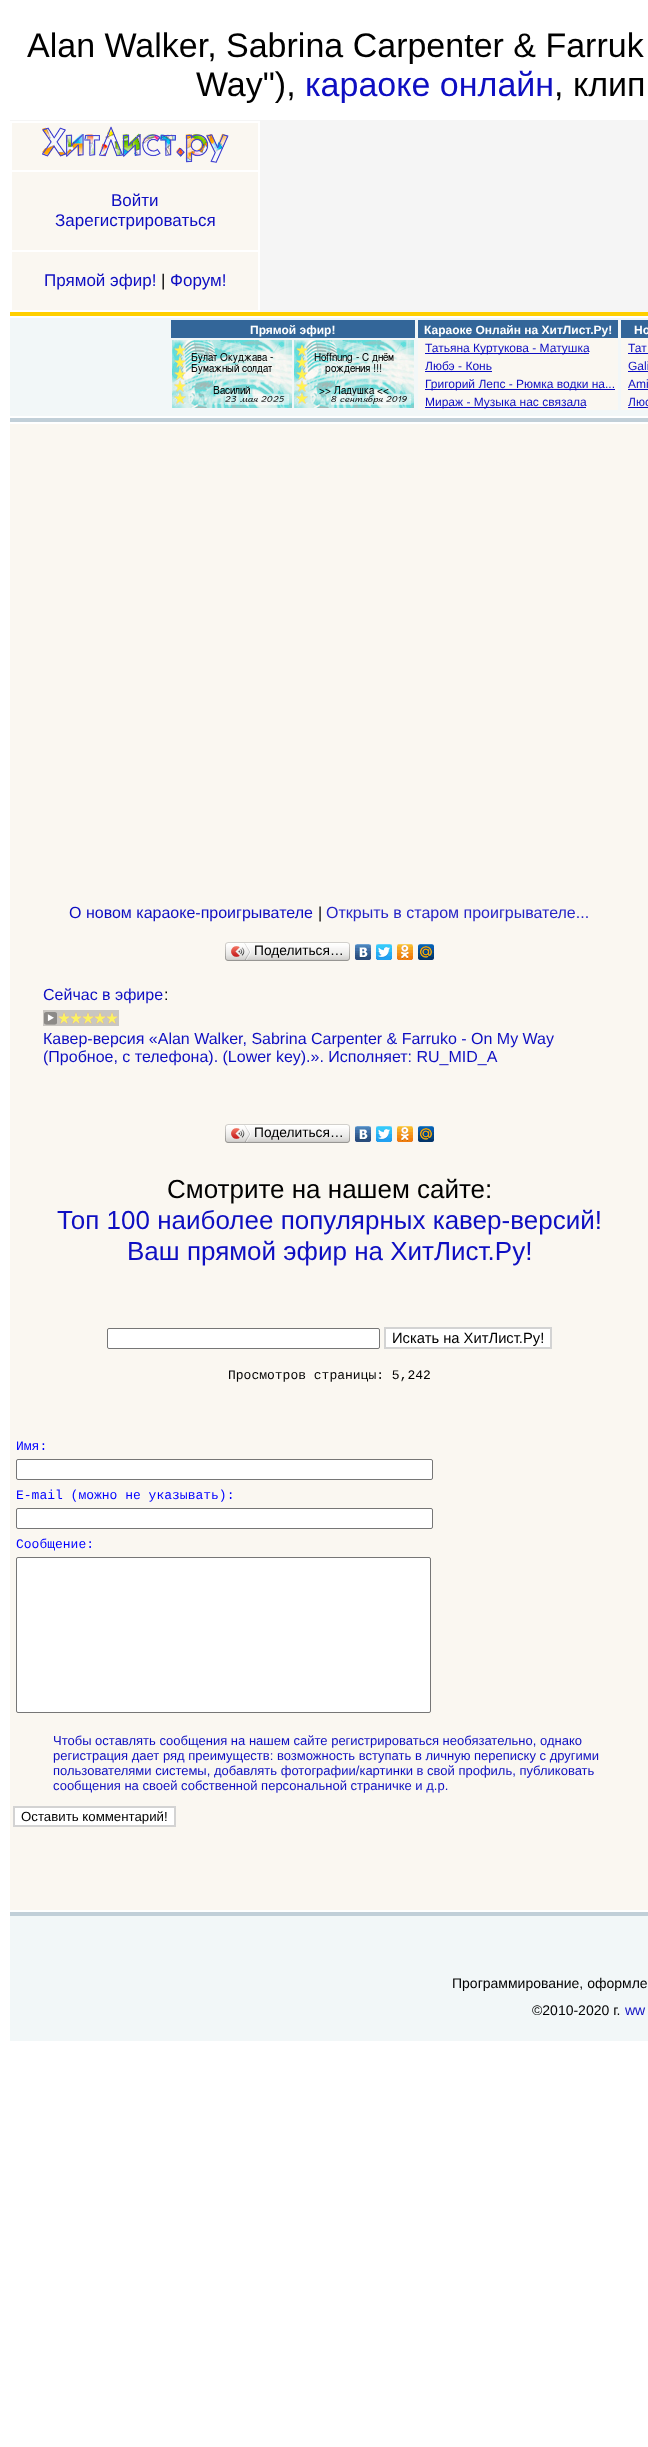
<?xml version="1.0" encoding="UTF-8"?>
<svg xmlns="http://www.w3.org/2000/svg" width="648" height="2447">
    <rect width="100%" height="100%" fill="#FFFFFF"/>
    <text x="27" y="57" font-family="Liberation Sans" font-size="34" fill="#000000">Alan Walker, Sabrina Carpenter &amp; Farruk</text>
    <text x="196" y="96" font-family="Liberation Sans" font-size="34" fill="#000000">Way"),</text>
    <text x="305" y="96" font-family="Liberation Sans" font-size="34" fill="#0E0EC2">караоке онлайн</text>
    <text x="554" y="96" font-family="Liberation Sans" font-size="34" fill="#000000">, клип</text>
    <rect x="260" y="120" width="388" height="192" fill="#F5F5F5"/>
    <rect x="10" y="120" width="250" height="1" fill="#F5F5F5"/>
    <rect x="12" y="123" width="246" height="47" fill="#FAF7F1"/>
    <image x="42" y="126" width="187" height="37" href="img_01.png"/>
    <rect x="12" y="172" width="246" height="78" fill="#FAF7F1"/>
    <text x="111" y="206" font-family="Liberation Sans" font-size="17" fill="#0E0EC2">Войти</text>
    <text x="55" y="226" font-family="Liberation Sans" font-size="17" fill="#0E0EC2">Зарегистрироваться</text>
    <rect x="12" y="252" width="246" height="58" fill="#FAF7F1"/>
    <text x="44" y="286" font-family="Liberation Sans" font-size="17" fill="#0E0EC2">Прямой эфир!</text>
    <text x="161" y="286" font-family="Liberation Sans" font-size="17" fill="#000000">|</text>
    <text x="170" y="286" font-family="Liberation Sans" font-size="17" fill="#0E0EC2">Форум!</text>
    <rect x="10" y="318" width="638" height="98" fill="#F2F7F8"/>
    <rect x="10" y="312" width="638" height="4" fill="#FFCF00"/>
    <rect x="10" y="418" width="638" height="4" fill="#C1CFD8"/>
    <rect x="171" y="320" width="244" height="18" fill="#336699"/>
    <text x="250" y="334" font-family="Liberation Sans" font-size="12" font-weight="700" fill="#FFFFFF">Прямой эфир!</text>
    <image x="172" y="340" width="120" height="68" href="img_02.png"/>
    <image x="294" y="340" width="120" height="68" href="img_03.png"/>
    <rect x="418" y="320" width="200" height="18" fill="#336699"/>
    <text x="424" y="334" font-family="Liberation Sans" font-size="12" font-weight="700" fill="#FFFFFF">Караоке Онлайн на ХитЛист.Ру!</text>
    <rect x="418" y="338" width="200" height="72" fill="#FAF7F1"/>
    <rect x="425" y="353" width="164" height="1" fill="#0E0EC2"/>
    <text font-family="Liberation Sans" font-size="12" fill="#0E0EC2">
        <tspan x="425" y="352">Татьяна Куртукова - Матушка</tspan>
        <tspan x="425" y="370">Любэ - Конь</tspan>
    </text>
    <rect x="425" y="371" width="67" height="1" fill="#0E0EC2"/>
    <rect x="425" y="389" width="190" height="1" fill="#0E0EC2"/>
    <text x="425" y="388" font-family="Liberation Sans" font-size="12" fill="#0E0EC2">Григорий Лепс - Рюмка водки на...</text>
    <rect x="425" y="407" width="161" height="1" fill="#0E0EC2"/>
    <text x="425" y="406" font-family="Liberation Sans" font-size="12" fill="#0E0EC2">Мираж - Музыка нас связала</text>
    <rect x="621" y="320" width="27" height="18" fill="#336699"/>
    <text x="634" y="334" font-family="Liberation Sans" font-size="12" font-weight="700" fill="#FFFFFF">Но</text>
    <rect x="621" y="338" width="27" height="72" fill="#FAF7F1"/>
    <text x="628" y="352" font-family="Liberation Sans" font-size="12" fill="#0E0EC2">Тат</text>
    <rect x="628" y="353" width="20" height="1" fill="#0E0EC2"/>
    <text x="628" y="370" font-family="Liberation Sans" font-size="12" fill="#0E0EC2">Gali</text>
    <rect x="628" y="371" width="20" height="1" fill="#0E0EC2"/>
    <text x="628" y="388" font-family="Liberation Sans" font-size="12" fill="#0E0EC2">Ami</text>
    <rect x="628" y="389" width="20" height="1" fill="#0E0EC2"/>
    <text x="628" y="406" font-family="Liberation Sans" font-size="12" fill="#0E0EC2">Люс</text>
    <rect x="628" y="407" width="20" height="1" fill="#0E0EC2"/>
    <rect x="10" y="424" width="638" height="1486" fill="#FAF7F1"/>
    <text x="69" y="918" font-family="Liberation Sans" font-size="16" fill="#0E0EC2">О новом караоке-проигрывателе</text>
    <text x="318" y="918" font-family="Liberation Sans" font-size="16" fill="#000000">|</text>
    <text x="326" y="918" font-family="Liberation Sans" font-size="16" fill="#2625C7">Открыть в старом проигрывателе...</text>
    <image x="228" y="942" width="119" height="19" href="img_04.png"/>
    <image x="225" y="942" width="3" height="19" href="img_05.png"/>
    <image x="231" y="943" width="20" height="17" href="img_06.png"/>
    <text x="254" y="955" font-family="Liberation Sans" font-size="13.75" fill="#000000">Поделиться…</text>
    <image x="347" y="942" width="3" height="19" href="img_07.png"/>
    <image x="355" y="944" width="16" height="16" href="img_08.png"/>
    <image x="376" y="944" width="16" height="16" href="img_09.png"/>
    <image x="397" y="944" width="16" height="16" href="img_10.png"/>
    <image x="418" y="944" width="16" height="16" href="img_11.png"/>
    <text x="43" y="1000" font-family="Liberation Sans" font-size="16" fill="#0E0EC2">Сейчас в эфире</text>
    <text x="164" y="1000" font-family="Liberation Sans" font-size="16" fill="#000000">:</text>
    <image x="43" y="1010" width="76" height="16" href="img_12.png"/>
    <text font-family="Liberation Sans" font-size="16" fill="#0E0EC2">
        <tspan x="43" y="1044">Кавер-версия «Alan Walker, Sabrina Carpenter &amp; Farruko - On My Way</tspan>
        <tspan x="43" y="1062">(Пробное, с телефона). (Lower key).». Исполняет: RU_MID_A</tspan>
    </text>
    <image x="228" y="1124" width="119" height="19" href="img_04.png"/>
    <image x="225" y="1124" width="3" height="19" href="img_05.png"/>
    <image x="231" y="1125" width="20" height="17" href="img_06.png"/>
    <text x="254" y="1137" font-family="Liberation Sans" font-size="13.75" fill="#000000">Поделиться…</text>
    <image x="347" y="1124" width="3" height="19" href="img_07.png"/>
    <image x="355" y="1126" width="16" height="16" href="img_08.png"/>
    <image x="376" y="1126" width="16" height="16" href="img_09.png"/>
    <image x="397" y="1126" width="16" height="16" href="img_10.png"/>
    <image x="418" y="1126" width="16" height="16" href="img_11.png"/>
    <text x="167" y="1198" font-family="Liberation Sans" font-size="26" fill="#000000">Смотрите на нашем сайте:</text>
    <text x="57" y="1229" font-family="Liberation Sans" font-size="26" fill="#0E0EC2">Топ 100 наиболее популярных кавер-версий!</text>
    <text x="127" y="1260" font-family="Liberation Sans" font-size="26" fill="#0E0EC2">Ваш прямой эфир на ХитЛист.Ру!</text>
    <rect x="107.5" y="1328.5" width="272" height="20" rx="1.5" fill="#FFFFFF" stroke="#767676"/>
    <rect x="385" y="1328" width="166" height="20" fill="#FFFFFF" stroke="#D3D3D3" stroke-width="2"/>
    <text x="392" y="1343" font-family="Liberation Sans" font-size="14.75" fill="#000000">Искать на ХитЛист.Ру!</text>
    <text x="228" y="1379" font-family="Liberation Mono" font-size="13" fill="#000000">Просмотров страницы: 5,242</text>
    <text x="16" y="1450" font-family="Liberation Mono" font-size="13" fill="#0000FF">Имя:</text>
    <rect x="16.5" y="1459.5" width="416" height="20" rx="1.5" fill="#FFFFFF" stroke="#767676"/>
    <text x="16" y="1499" font-family="Liberation Mono" font-size="13" fill="#0000FF">E-mail (можно не указывать):</text>
    <rect x="16.5" y="1508.5" width="416" height="20" rx="1.5" fill="#FFFFFF" stroke="#767676"/>
    <text x="16" y="1548" font-family="Liberation Mono" font-size="13" fill="#0000FF">Сообщение:</text>
    <rect x="16.5" y="1557.5" width="414" height="155" rx="1.5" fill="#FFFFFF" stroke="#767676"/>
    <text font-family="Liberation Sans" font-size="13" fill="#0E0EC2">
        <tspan x="53" y="1745">Чтобы оставлять сообщения на нашем сайте регистрироваться необязательно, однако</tspan>
        <tspan x="53" y="1760">регистрация дает ряд преимуществ: возможность вступать в личную переписку с другими</tspan>
        <tspan x="53" y="1775">пользователями системы, добавлять фотографии/картинки в свой профиль, публиковать</tspan>
        <tspan x="53" y="1790">сообщения на своей собственной персональной страничке и д.р.</tspan>
    </text>
    <rect x="14" y="1807" width="161" height="19" fill="#FFFFFF" stroke="#D3D3D3" stroke-width="2"/>
    <text x="21" y="1821" font-family="Liberation Sans" font-size="13.25" fill="#000000">Оставить комментарий!</text>
    <rect x="10" y="1916" width="638" height="125" fill="#F2F7F8"/>
    <rect x="10" y="1912" width="638" height="4" fill="#C1CFD8"/>
    <text x="452" y="1988" font-family="Liberation Sans" font-size="14" fill="#000000">Программирование, оформле</text>
    <text x="532" y="2015" font-family="Liberation Sans" font-size="14" fill="#000000">©2010-2020 г.</text>
    <text x="625" y="2015" font-family="Liberation Sans" font-size="14" fill="#0E0EC2">ww</text>
</svg>
